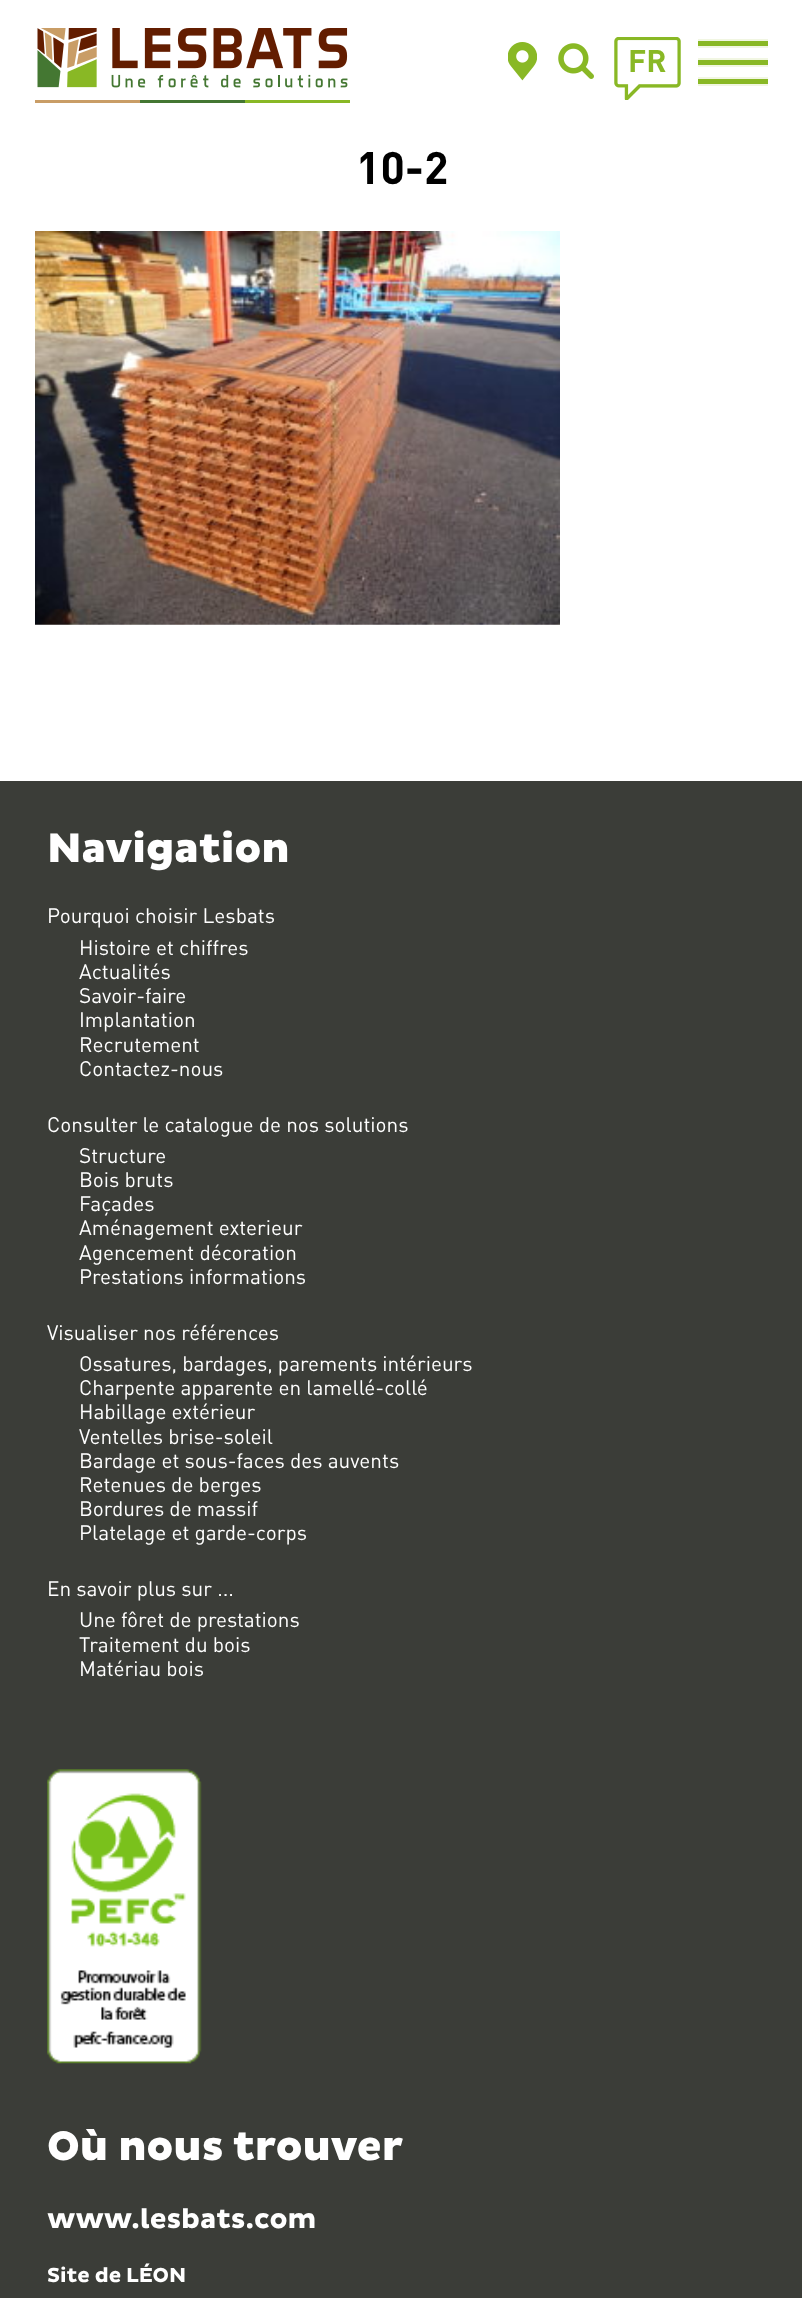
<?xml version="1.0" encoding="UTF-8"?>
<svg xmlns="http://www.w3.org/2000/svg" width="802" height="2298">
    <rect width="100%" height="100%" fill="#FFFFFF"/>
    <image x="35" y="28" width="315" height="75" href="img_01.png"/>
    <image x="508" y="42" width="29" height="39" href="img_02.png"/>
    <image x="558" y="43" width="36" height="36" href="img_03.png"/>
    <image x="614" y="37" width="67" height="63" href="img_04.png"/>
    <text x="628" y="72" font-family="DIN" font-size="31" font-weight="700" fill="#89B825">FR</text>
    <rect x="698" y="41" width="70" height="5" fill="#89B825"/>
    <rect x="698" y="39" width="70" height="2" fill="#F1F6E2"/>
    <rect x="698" y="46" width="70" height="2" fill="#F1F6E2"/>
    <rect x="698" y="60" width="70" height="5" fill="#89B825"/>
    <rect x="698" y="58" width="70" height="2" fill="#F1F6E2"/>
    <rect x="698" y="65" width="70" height="2" fill="#F1F6E2"/>
    <rect x="698" y="79" width="70" height="5" fill="#89B825"/>
    <rect x="698" y="77" width="70" height="2" fill="#F1F6E2"/>
    <rect x="698" y="84" width="70" height="2" fill="#F1F6E2"/>
    <text x="356" y="184" font-family="DIN" font-size="45" font-weight="700" fill="#000000">10-2</text>
    <image x="35" y="231" width="525" height="394" href="img_05.png"/>
    <rect x="0" y="781" width="802" height="1517" fill="#3B3D38"/>
    <text x="47" y="862" font-family="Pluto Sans" font-size="42" font-weight="900" fill="#FFFFFF">Navigation</text>
    <text x="47" y="923" font-family="DIN" font-size="20.75" fill="#FFFFFF">Pourquoi choisir Lesbats</text>
    <text font-family="DIN" font-size="20.75" fill="#FFFFFF">
        <tspan x="79" y="955">Histoire et chiffres</tspan>
        <tspan x="79" y="979">Actualités</tspan>
        <tspan x="79" y="1003">Savoir-faire</tspan>
        <tspan x="79" y="1027">Implantation</tspan>
        <tspan x="79" y="1052">Recrutement</tspan>
        <tspan x="79" y="1076">Contactez-nous</tspan>
    </text>
    <text x="47" y="1132" font-family="DIN" font-size="20.75" fill="#FFFFFF">Consulter le catalogue de nos solutions</text>
    <text font-family="DIN" font-size="20.75" fill="#FFFFFF">
        <tspan x="79" y="1163">Structure</tspan>
        <tspan x="79" y="1187">Bois bruts</tspan>
        <tspan x="79" y="1211">Façades</tspan>
        <tspan x="79" y="1235">Aménagement exterieur</tspan>
        <tspan x="79" y="1260">Agencement décoration</tspan>
        <tspan x="79" y="1284">Prestations informations</tspan>
    </text>
    <text x="47" y="1340" font-family="DIN" font-size="20.75" fill="#FFFFFF">Visualiser nos références</text>
    <text font-family="DIN" font-size="20.75" fill="#FFFFFF">
        <tspan x="79" y="1371">Ossatures, bardages, parements intérieurs</tspan>
        <tspan x="79" y="1395">Charpente apparente en lamellé-collé</tspan>
        <tspan x="79" y="1419">Habillage extérieur</tspan>
        <tspan x="79" y="1444">Ventelles brise-soleil</tspan>
        <tspan x="79" y="1468">Bardage et sous-faces des auvents</tspan>
        <tspan x="79" y="1492">Retenues de berges</tspan>
        <tspan x="79" y="1516">Bordures de massif</tspan>
        <tspan x="79" y="1540">Platelage et garde-corps</tspan>
    </text>
    <text x="47" y="1596" font-family="DIN" font-size="20.75" fill="#FFFFFF">En savoir plus sur ...</text>
    <text font-family="DIN" font-size="20.75" fill="#FFFFFF">
        <tspan x="79" y="1627">Une fôret de prestations</tspan>
        <tspan x="79" y="1652">Traitement du bois</tspan>
        <tspan x="79" y="1676">Matériau bois</tspan>
    </text>
    <image x="47" y="1769" width="155" height="295" href="img_06.png"/>
    <text x="47" y="2160" font-family="Pluto Sans" font-size="42" font-weight="900" fill="#FFFFFF">Où nous trouver</text>
    <text x="47" y="2228" font-family="Pluto Sans" font-size="28" font-weight="700" fill="#FFFFFF">www.lesbats.com</text>
    <text x="47" y="2282" font-family="Pluto Sans" font-size="20.75" font-weight="700" fill="#FFFFFF">Site de LÉON</text>
</svg>
